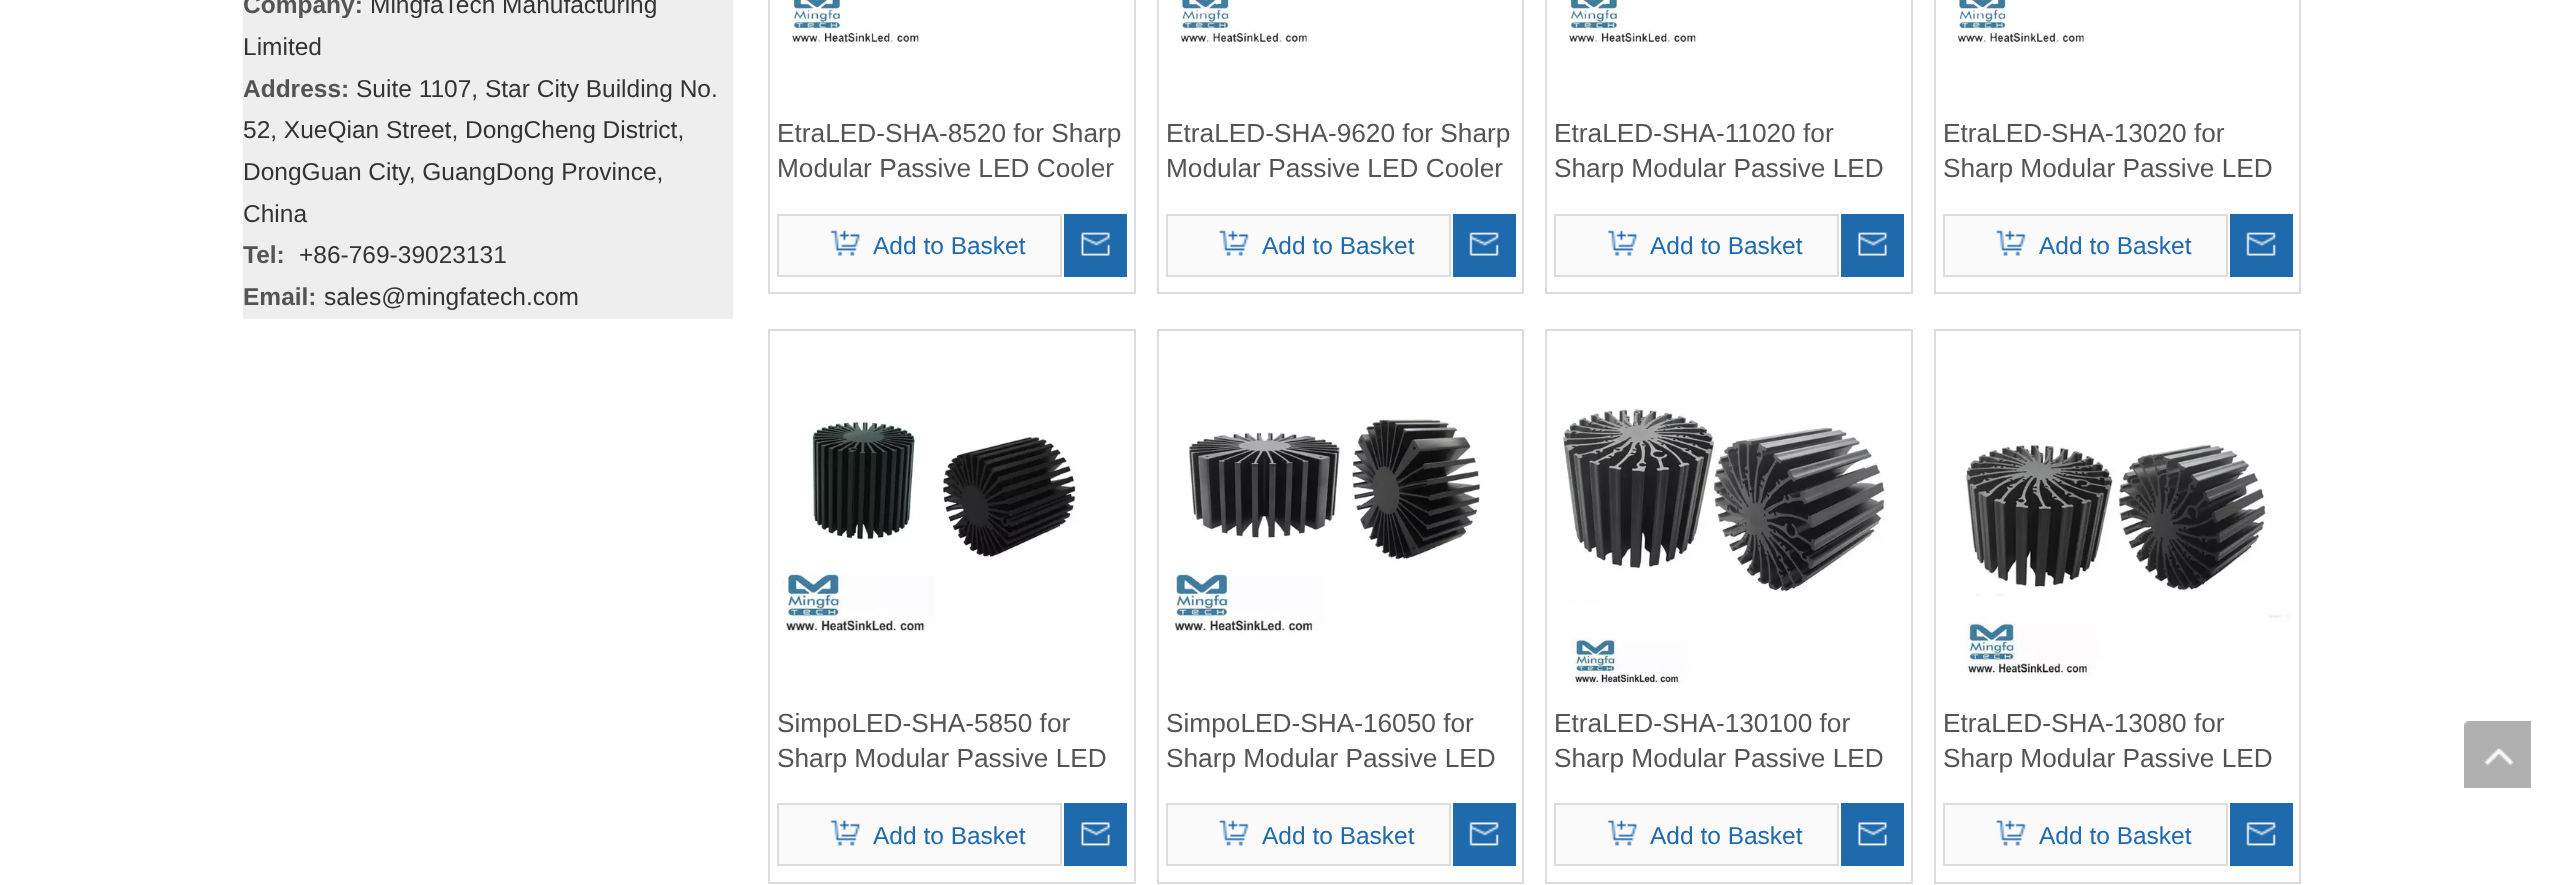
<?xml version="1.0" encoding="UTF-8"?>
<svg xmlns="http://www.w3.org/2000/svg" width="2551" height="885">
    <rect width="100%" height="100%" fill="#FFFFFF"/>
    <rect x="243" y="0" width="490" height="319" fill="#EEEEEE"/>
    <text x="243" y="13" font-family="Liberation Sans" font-size="24.5" font-weight="700" fill="#545454">Company:</text>
    <text x="370" y="13" font-family="Liberation Sans" font-size="24.5" fill="#333333">MingfaTech Manufacturing</text>
    <text x="243" y="55" font-family="Liberation Sans" font-size="24.5" fill="#333333">Limited</text>
    <text x="243" y="97" font-family="Liberation Sans" font-size="24.5" font-weight="700" fill="#545454">Address:</text>
    <text x="356" y="97" font-family="Liberation Sans" font-size="24.5" fill="#333333">Suite 1107, Star City Building No.</text>
    <text font-family="Liberation Sans" font-size="24.5" fill="#333333">
        <tspan x="243" y="138">52, XueQian Street, DongCheng District,</tspan>
        <tspan x="243" y="180">DongGuan City, GuangDong Province,</tspan>
        <tspan x="243" y="222">China</tspan>
    </text>
    <text x="243" y="263" font-family="Liberation Sans" font-size="24.5" font-weight="700" fill="#545454">Tel:</text>
    <text x="299" y="263" font-family="Liberation Sans" font-size="24.5" fill="#333333">+86-769-39023131</text>
    <text x="243" y="305" font-family="Liberation Sans" font-size="24.5" font-weight="700" fill="#545454">Email:</text>
    <text x="324" y="305" font-family="Liberation Sans" font-size="24.5" fill="#333333">sales@mingfatech.com</text>
    <rect x="769" y="-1" width="366" height="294" fill="none" stroke="#DCDCDC" stroke-width="2"/>
    <image x="791" y="0" width="129" height="43" href="img_01.png"/>
    <text font-family="Liberation Sans" font-size="26.25" fill="#545454">
        <tspan x="777" y="142">EtraLED-SHA-8520 for Sharp</tspan>
        <tspan x="777" y="177">Modular Passive LED Cooler</tspan>
    </text>
    <rect x="778" y="215" width="283" height="61" fill="#FAFAFA" stroke="#DCDCDC" stroke-width="2"/>
    <image x="830" y="230" width="30" height="26" href="img_02.png"/>
    <text x="873" y="254" font-family="Liberation Sans" font-size="24.5" fill="#1F69AD">Add to Basket</text>
    <rect x="1064" y="214" width="63" height="63" fill="#1F69AD"/>
    <image x="1081" y="232" width="29" height="24" href="img_03.png"/>
    <rect x="1158" y="-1" width="365" height="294" fill="none" stroke="#DCDCDC" stroke-width="2"/>
    <image x="1180" y="0" width="129" height="43" href="img_04.png"/>
    <text font-family="Liberation Sans" font-size="26.25" fill="#545454">
        <tspan x="1166" y="142">EtraLED-SHA-9620 for Sharp</tspan>
        <tspan x="1166" y="177">Modular Passive LED Cooler</tspan>
    </text>
    <rect x="1167" y="215" width="283" height="61" fill="#FAFAFA" stroke="#DCDCDC" stroke-width="2"/>
    <image x="1219" y="230" width="30" height="26" href="img_05.png"/>
    <text x="1262" y="254" font-family="Liberation Sans" font-size="24.5" fill="#1F69AD">Add to Basket</text>
    <rect x="1453" y="214" width="63" height="63" fill="#1F69AD"/>
    <image x="1469" y="232" width="30" height="24" href="img_06.png"/>
    <rect x="1546" y="-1" width="366" height="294" fill="none" stroke="#DCDCDC" stroke-width="2"/>
    <image x="1569" y="0" width="128" height="43" href="img_07.png"/>
    <text font-family="Liberation Sans" font-size="26.25" fill="#545454">
        <tspan x="1554" y="142">EtraLED-SHA-11020 for</tspan>
        <tspan x="1554" y="177">Sharp Modular Passive LED</tspan>
    </text>
    <rect x="1555" y="215" width="283" height="61" fill="#FAFAFA" stroke="#DCDCDC" stroke-width="2"/>
    <image x="1607" y="230" width="30" height="26" href="img_08.png"/>
    <text x="1650" y="254" font-family="Liberation Sans" font-size="24.5" fill="#1F69AD">Add to Basket</text>
    <rect x="1841" y="214" width="63" height="63" fill="#1F69AD"/>
    <image x="1858" y="232" width="29" height="24" href="img_09.png"/>
    <rect x="1935" y="-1" width="365" height="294" fill="none" stroke="#DCDCDC" stroke-width="2"/>
    <image x="1957" y="0" width="129" height="43" href="img_10.png"/>
    <text font-family="Liberation Sans" font-size="26.25" fill="#545454">
        <tspan x="1943" y="142">EtraLED-SHA-13020 for</tspan>
        <tspan x="1943" y="177">Sharp Modular Passive LED</tspan>
    </text>
    <rect x="1944" y="215" width="283" height="61" fill="#FAFAFA" stroke="#DCDCDC" stroke-width="2"/>
    <image x="1996" y="230" width="30" height="26" href="img_05.png"/>
    <text x="2039" y="254" font-family="Liberation Sans" font-size="24.5" fill="#1F69AD">Add to Basket</text>
    <rect x="2230" y="214" width="63" height="63" fill="#1F69AD"/>
    <image x="2246" y="232" width="30" height="24" href="img_06.png"/>
    <rect x="769" y="330" width="366" height="553" fill="none" stroke="#DCDCDC" stroke-width="2"/>
    <image x="782" y="420" width="295" height="212" href="img_11.png"/>
    <text font-family="Liberation Sans" font-size="26.25" fill="#545454">
        <tspan x="777" y="732">SimpoLED-SHA-5850 for</tspan>
        <tspan x="777" y="767">Sharp Modular Passive LED</tspan>
    </text>
    <rect x="778" y="804" width="283" height="61" fill="#FAFAFA" stroke="#DCDCDC" stroke-width="2"/>
    <image x="830" y="820" width="30" height="26" href="img_12.png"/>
    <text x="873" y="844" font-family="Liberation Sans" font-size="24.5" fill="#1F69AD">Add to Basket</text>
    <rect x="1064" y="803" width="63" height="63" fill="#1F69AD"/>
    <image x="1081" y="822" width="29" height="24" href="img_13.png"/>
    <rect x="1158" y="330" width="365" height="553" fill="none" stroke="#DCDCDC" stroke-width="2"/>
    <image x="1170" y="419" width="311" height="214" href="img_14.png"/>
    <text font-family="Liberation Sans" font-size="26.25" fill="#545454">
        <tspan x="1166" y="732">SimpoLED-SHA-16050 for</tspan>
        <tspan x="1166" y="767">Sharp Modular Passive LED</tspan>
    </text>
    <rect x="1167" y="804" width="283" height="61" fill="#FAFAFA" stroke="#DCDCDC" stroke-width="2"/>
    <image x="1219" y="820" width="30" height="26" href="img_15.png"/>
    <text x="1262" y="844" font-family="Liberation Sans" font-size="24.5" fill="#1F69AD">Add to Basket</text>
    <rect x="1453" y="803" width="63" height="63" fill="#1F69AD"/>
    <image x="1469" y="822" width="30" height="24" href="img_16.png"/>
    <rect x="1546" y="330" width="366" height="553" fill="none" stroke="#DCDCDC" stroke-width="2"/>
    <image x="1563" y="408" width="323" height="278" href="img_17.png"/>
    <text font-family="Liberation Sans" font-size="26.25" fill="#545454">
        <tspan x="1554" y="732">EtraLED-SHA-130100 for</tspan>
        <tspan x="1554" y="767">Sharp Modular Passive LED</tspan>
    </text>
    <rect x="1555" y="804" width="283" height="61" fill="#FAFAFA" stroke="#DCDCDC" stroke-width="2"/>
    <image x="1607" y="820" width="30" height="26" href="img_18.png"/>
    <text x="1650" y="844" font-family="Liberation Sans" font-size="24.5" fill="#1F69AD">Add to Basket</text>
    <rect x="1841" y="803" width="63" height="63" fill="#1F69AD"/>
    <image x="1858" y="822" width="29" height="24" href="img_19.png"/>
    <rect x="1935" y="330" width="365" height="553" fill="none" stroke="#DCDCDC" stroke-width="2"/>
    <image x="1965" y="444" width="326" height="232" href="img_20.png"/>
    <text font-family="Liberation Sans" font-size="26.25" fill="#545454">
        <tspan x="1943" y="732">EtraLED-SHA-13080 for</tspan>
        <tspan x="1943" y="767">Sharp Modular Passive LED</tspan>
    </text>
    <rect x="1944" y="804" width="283" height="61" fill="#FAFAFA" stroke="#DCDCDC" stroke-width="2"/>
    <image x="1996" y="820" width="30" height="26" href="img_15.png"/>
    <text x="2039" y="844" font-family="Liberation Sans" font-size="24.5" fill="#1F69AD">Add to Basket</text>
    <rect x="2230" y="803" width="63" height="63" fill="#1F69AD"/>
    <image x="2246" y="822" width="30" height="24" href="img_16.png"/>
    <image x="2464" y="721" width="67" height="67" href="img_21.png"/>
</svg>
